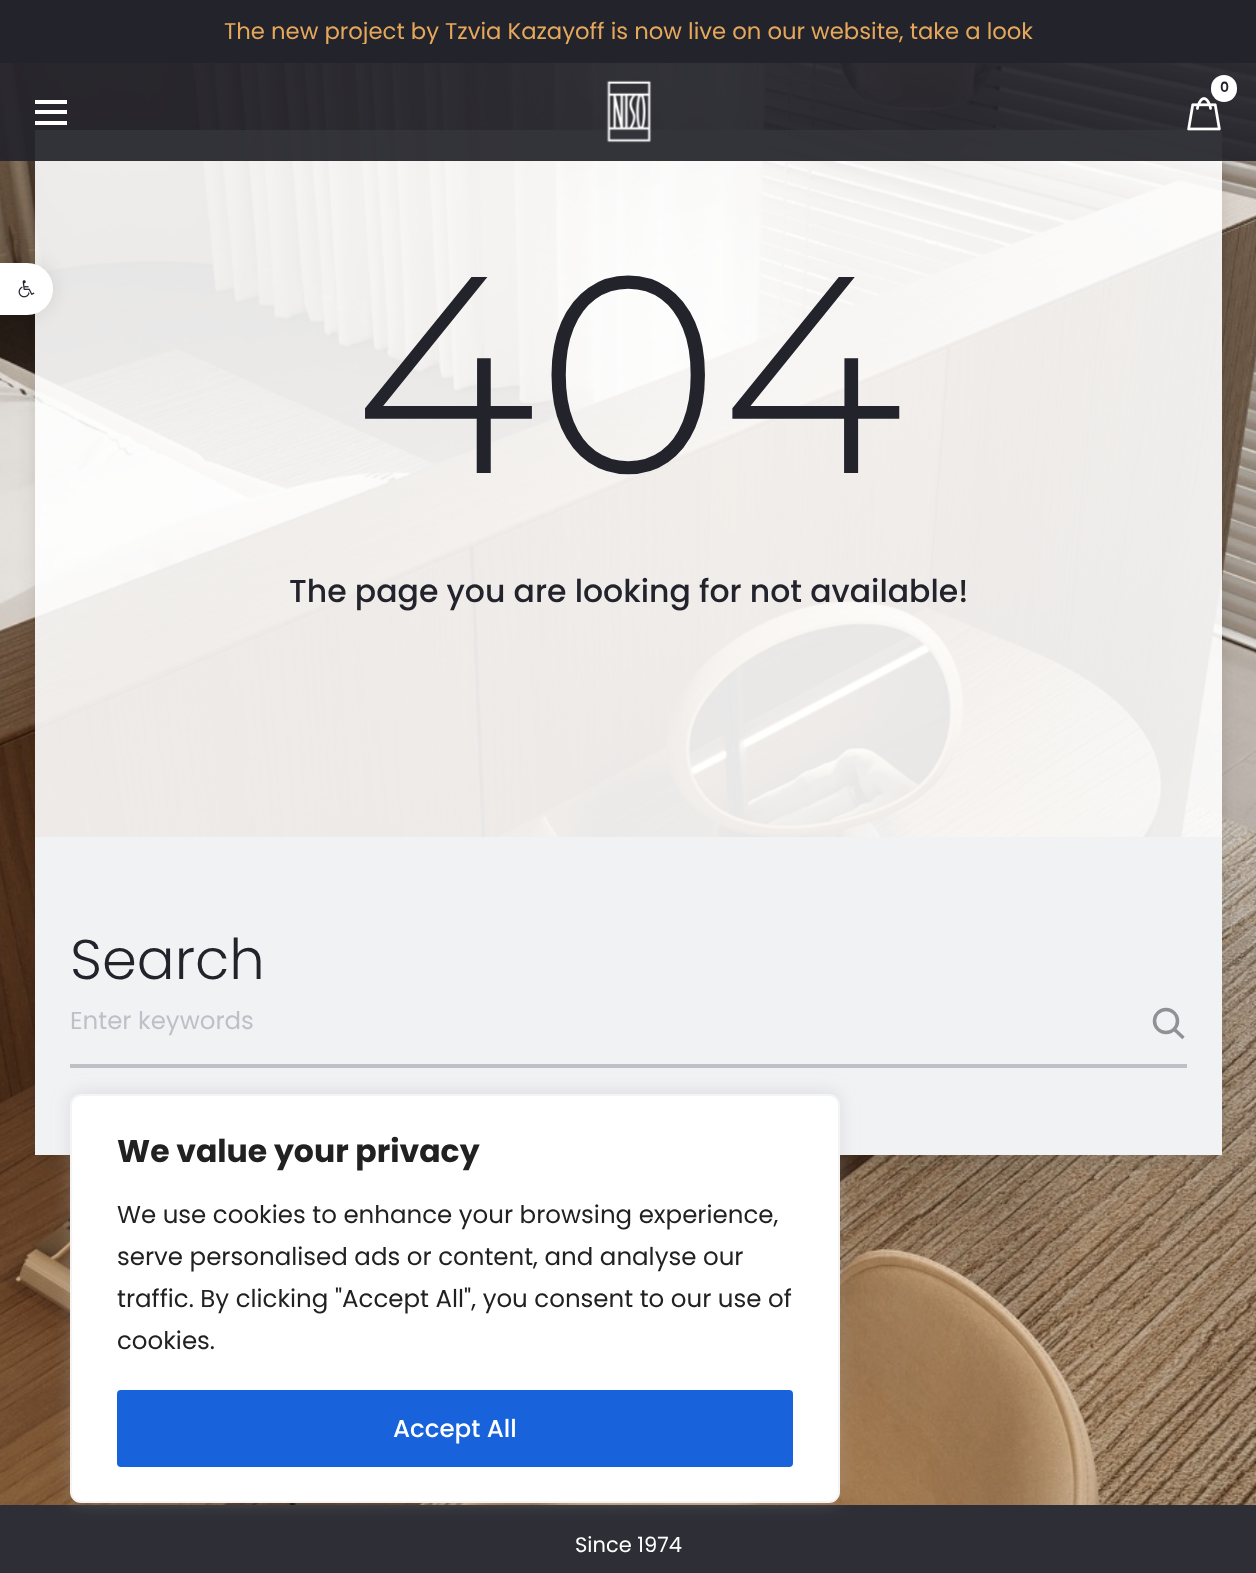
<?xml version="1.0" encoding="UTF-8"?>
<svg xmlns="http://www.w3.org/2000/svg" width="1256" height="1573">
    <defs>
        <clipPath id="clip1"><path d="M 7 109 H 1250 V 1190 H 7 Z M 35 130 H 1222 V 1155 H 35 Z" clip-rule="evenodd"/></clipPath>
        <filter id="blur1" x="-50%" y="-200%" width="200%" height="500%"><feGaussianBlur stdDeviation="9"/></filter>
        <clipPath id="clip2"><rect x="18" y="21" width="1221" height="23"/></clipPath>
    </defs>
    <rect width="100%" height="100%" fill="#FFFFFF"/>
    <image x="0" y="63" width="1256" height="1442" href="img_01.png"/>
    <g clip-path="url(#clip1)">
        <rect x="35" y="137" width="1187" height="1025" fill="#030303" fill-opacity="0.1" filter="url(#blur1)"/>
    </g>
    <rect x="35" y="130" width="1187" height="707" fill="#FFFFFF" fill-opacity="0.9"/>
    <rect x="0" y="263" width="53" height="52" rx="26" fill="#000000" fill-opacity="0.1" filter="url(#blur1)"/>
    <path d="M 0 263 H 27 C 41.5 263 53 274.5 53 289 C 53 303.5 41.5 315 27 315 H 0 Z" fill="#FFFFFF"/>
    <image x="18" y="280" width="17" height="18" href="img_02.png"/>
    <rect x="0" y="0" width="1256" height="63" fill="#23232C"/>
    <g clip-path="url(#clip2)">
        <text x="224" y="39" font-family="Poppins" font-size="22.75" fill="#E5A85B">The new project by Tzvia Kazayoff is now live on our website, take a look</text>
    </g>
    <rect x="0" y="63" width="1256" height="98" fill="#23242B" fill-opacity="0.93"/>
    <image x="606" y="80" width="46" height="63" href="img_03.png"/>
    <image x="1187" y="97" width="34" height="34" href="img_04.png"/>
    <rect x="1211" y="75" width="26" height="27" rx="13" fill="#FFFFFF"/>
    <text x="1220" y="92" font-family="Poppins" font-size="14" font-weight="600" fill="#23232C">0</text>
    <rect x="35" y="110" width="32" height="4" fill="#FFFFFF"/>
    <rect x="35" y="100" width="32" height="4" fill="#FFFFFF"/>
    <rect x="35" y="121" width="32" height="4" fill="#FFFFFF"/>
    <text x="353" y="473" font-family="Montserrat" font-size="280" font-weight="300" fill="#23232C">404</text>
    <text x="289" y="602" font-family="Poppins" font-size="31.5" font-weight="500" fill="#23232C">The page you are looking for not available!</text>
    <rect x="35" y="837" width="1187" height="318" fill="#F1F2F4"/>
    <text x="70" y="979" font-family="Poppins" font-size="56" font-weight="300" fill="#23232C">Search</text>
    <rect x="70" y="1064" width="1117" height="4" fill="#BFBFC8"/>
    <text x="70" y="1029" font-family="Poppins" font-size="24.5" fill="#BFBFC8">Enter keywords</text>
    <circle cx="1166" cy="1021" r="11.5" fill="none" stroke="#909097" stroke-width="3.5"/>
    <path d="M 1174 1029 L 1183.5 1038" fill="none" stroke="#909097" stroke-width="3.5"/>
    <rect x="0" y="1505" width="1256" height="68" fill="#2E2E36"/>
    <text x="575" y="1552" font-family="Poppins" font-size="21" fill="#FFFFFF">Since 1974</text>
    <rect x="70" y="1092" width="770" height="410" rx="11" fill="#ACABAB" fill-opacity="0.3" filter="url(#blur1)"/>
    <rect x="71" y="1095" width="768" height="407" rx="10" fill="#FFFFFF" stroke="#F4F4F4" stroke-width="2"/>
    <text x="117" y="1162" font-family="Poppins" font-size="31.5" font-weight="700" fill="#212121">We value your privacy</text>
    <text font-family="Poppins" font-size="24.5" fill="#212121">
        <tspan x="117" y="1223">We use cookies to enhance your browsing experience,</tspan>
        <tspan x="117" y="1265">serve personalised ads or content, and analyse our</tspan>
        <tspan x="117" y="1307">traffic. By clicking "Accept All", you consent to our use of</tspan>
        <tspan x="117" y="1349">cookies.</tspan>
    </text>
    <rect x="119" y="1392" width="672" height="73" rx="2" fill="#1863DC" stroke="#1863DC" stroke-width="4"/>
    <text x="393" y="1437" font-family="Poppins" font-size="24.5" font-weight="500" fill="#FFFFFF">Accept All</text>
</svg>
